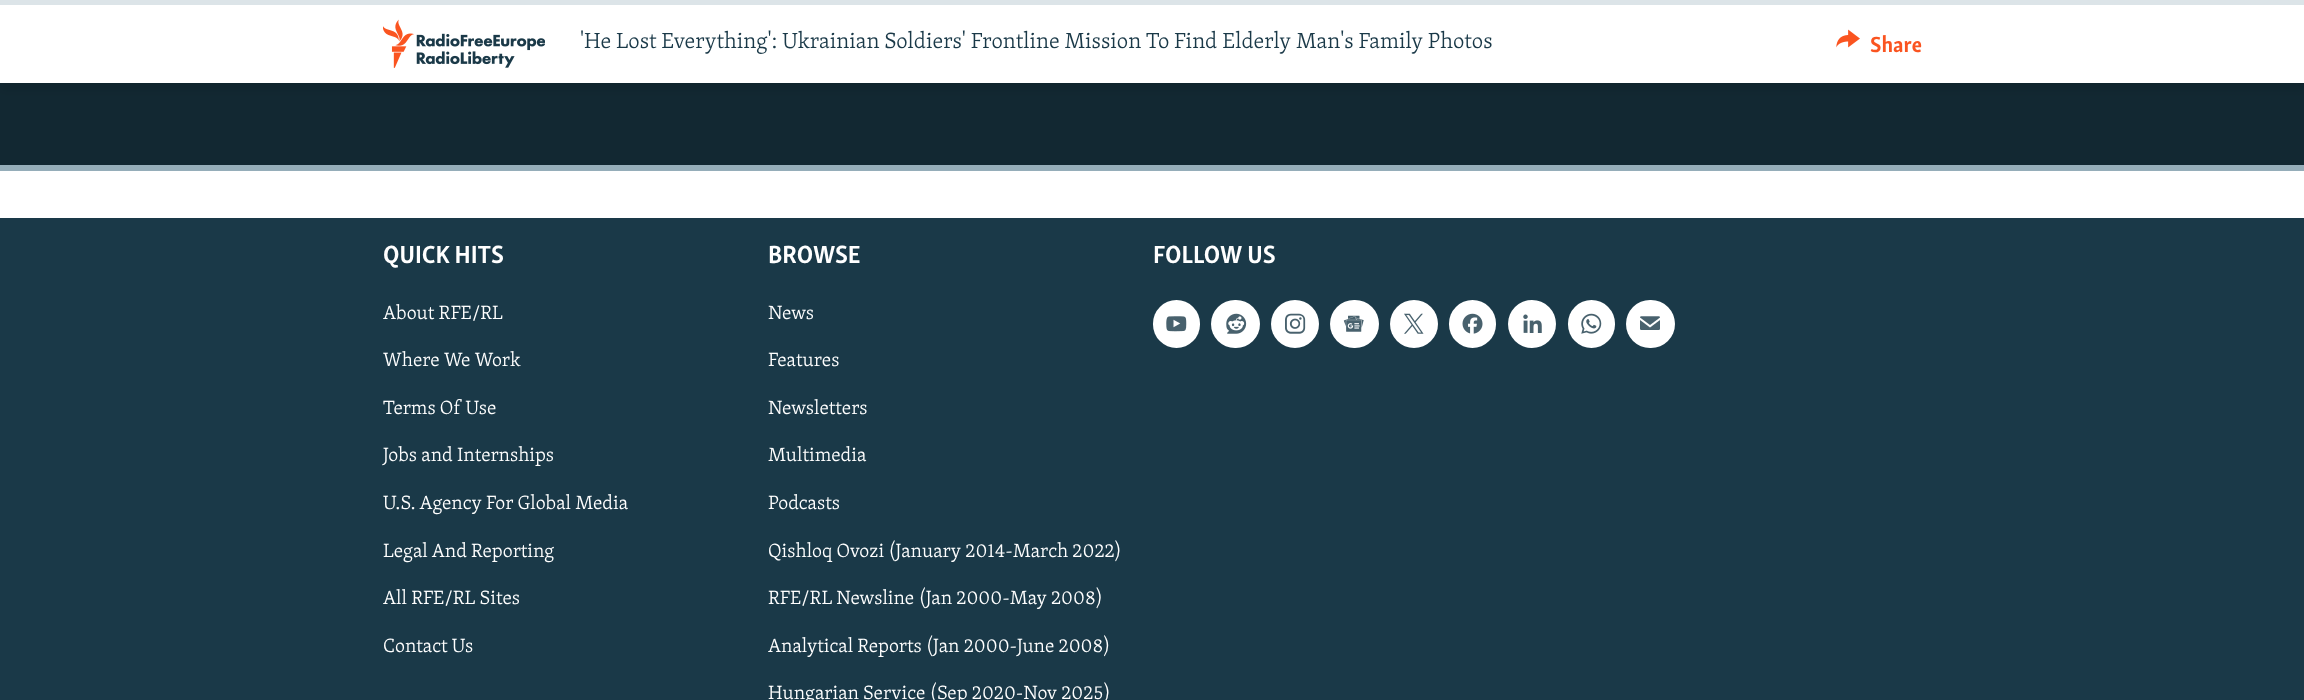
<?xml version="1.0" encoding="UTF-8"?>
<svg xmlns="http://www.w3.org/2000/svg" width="2304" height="700">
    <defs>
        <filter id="blur1" x="-50%" y="-200%" width="200%" height="500%"><feGaussianBlur stdDeviation="6"/></filter>
    </defs>
    <rect width="100%" height="100%" fill="#FFFFFF"/>
    <rect x="0" y="83" width="2304" height="82" fill="#122832"/>
    <rect x="0" y="6" width="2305" height="83" fill="#000000" fill-opacity="0.1" filter="url(#blur1)"/>
    <rect x="0" y="5" width="2304" height="78" fill="#FFFFFF"/>
    <rect x="0" y="0" width="2304" height="5" fill="#DCE4E8"/>
    <image x="383" y="19" width="162" height="49" href="img_01.png"/>
    <text x="580" y="48" font-family="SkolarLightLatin" font-size="22.5" font-weight="300" fill="#1A3948">'He Lost Everything': Ukrainian Soldiers' Frontline Mission To Find Elderly Man's Family Photos</text>
    <image x="1836" y="29" width="24" height="19" href="img_02.png"/>
    <text x="1870" y="52" font-family="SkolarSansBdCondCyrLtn" font-size="22.5" font-weight="700" fill="#FA5420">Share</text>
    <rect x="0" y="165" width="2304" height="6" fill="#95ADB9"/>
    <rect x="0" y="218" width="2304" height="482" fill="#1A3948"/>
    <text x="383" y="263" font-family="SkolarSansBdCondCyrLtn" font-size="25.5" font-weight="700" fill="#FFFFFF">QUICK HITS</text>
    <text x="383" y="319" font-family="SkolarLightLatin" font-size="19.7" font-weight="300" fill="#FFFFFF">About RFE/RL</text>
    <text x="383" y="366" font-family="SkolarLightLatin" font-size="19.7" font-weight="300" fill="#FFFFFF">Where We Work</text>
    <text x="383" y="414" font-family="SkolarLightLatin" font-size="19.7" font-weight="300" fill="#FFFFFF">Terms Of Use</text>
    <text x="383" y="461" font-family="SkolarLightLatin" font-size="19.7" font-weight="300" fill="#FFFFFF">Jobs and Internships</text>
    <text x="383" y="509" font-family="SkolarLightLatin" font-size="19.7" font-weight="300" fill="#FFFFFF">U.S. Agency For Global Media</text>
    <text x="383" y="557" font-family="SkolarLightLatin" font-size="19.7" font-weight="300" fill="#FFFFFF">Legal And Reporting</text>
    <text x="383" y="604" font-family="SkolarLightLatin" font-size="19.7" font-weight="300" fill="#FFFFFF">All RFE/RL Sites</text>
    <text x="383" y="652" font-family="SkolarLightLatin" font-size="19.7" font-weight="300" fill="#FFFFFF">Contact Us</text>
    <text x="768" y="263" font-family="SkolarSansBdCondCyrLtn" font-size="25.5" font-weight="700" fill="#FFFFFF">BROWSE</text>
    <text x="768" y="319" font-family="SkolarLightLatin" font-size="19.7" font-weight="300" fill="#FFFFFF">News</text>
    <text x="768" y="366" font-family="SkolarLightLatin" font-size="19.7" font-weight="300" fill="#FFFFFF">Features</text>
    <text x="768" y="414" font-family="SkolarLightLatin" font-size="19.7" font-weight="300" fill="#FFFFFF">Newsletters</text>
    <text x="768" y="461" font-family="SkolarLightLatin" font-size="19.7" font-weight="300" fill="#FFFFFF">Multimedia</text>
    <text x="768" y="509" font-family="SkolarLightLatin" font-size="19.7" font-weight="300" fill="#FFFFFF">Podcasts</text>
    <text x="768" y="557" font-family="SkolarLightLatin" font-size="19.7" font-weight="300" fill="#FFFFFF">Qishloq Ovozi (January 2014-March 2022)</text>
    <text x="768" y="604" font-family="SkolarLightLatin" font-size="19.7" font-weight="300" fill="#FFFFFF">RFE/RL Newsline (Jan 2000-May 2008)</text>
    <text x="768" y="652" font-family="SkolarLightLatin" font-size="19.7" font-weight="300" fill="#FFFFFF">Analytical Reports (Jan 2000-June 2008)</text>
    <text x="768" y="699" font-family="SkolarLightLatin" font-size="19.7" font-weight="300" fill="#FFFFFF">Hungarian Service (Sep 2020-Nov 2025)</text>
    <text x="1153" y="263" font-family="SkolarSansBdCondCyrLtn" font-size="25.5" font-weight="700" fill="#FFFFFF">FOLLOW US</text>
    <rect x="1153" y="300" width="47" height="48" rx="23.5" fill="#FFFFFF"/>
    <image x="1166" y="316" width="21" height="16" href="img_03.png"/>
    <rect x="1211" y="300" width="49" height="48" rx="24" fill="#FFFFFF"/>
    <image x="1226" y="313" width="21" height="21" href="img_04.png"/>
    <circle cx="1295" cy="324" r="24" fill="#FFFFFF"/>
    <image x="1285" y="313" width="21" height="21" href="img_05.png"/>
    <rect x="1330" y="300" width="49" height="48" rx="24" fill="#FFFFFF"/>
    <image x="1343" y="315" width="21" height="17" href="img_06.png"/>
    <circle cx="1414" cy="324" r="24" fill="#FFFFFF"/>
    <image x="1404" y="313" width="20" height="21" href="img_07.png"/>
    <rect x="1449" y="300" width="47" height="48" rx="23.5" fill="#FFFFFF"/>
    <image x="1462" y="313" width="21" height="21" href="img_08.png"/>
    <circle cx="1532" cy="324" r="24" fill="#FFFFFF"/>
    <image x="1523" y="314" width="19" height="19" href="img_09.png"/>
    <rect x="1568" y="300" width="47" height="48" rx="23.5" fill="#FFFFFF"/>
    <image x="1581" y="313" width="21" height="21" href="img_10.png"/>
    <rect x="1626" y="300" width="49" height="48" rx="24" fill="#FFFFFF"/>
    <image x="1640" y="316" width="20" height="14" href="img_11.png"/>
</svg>
